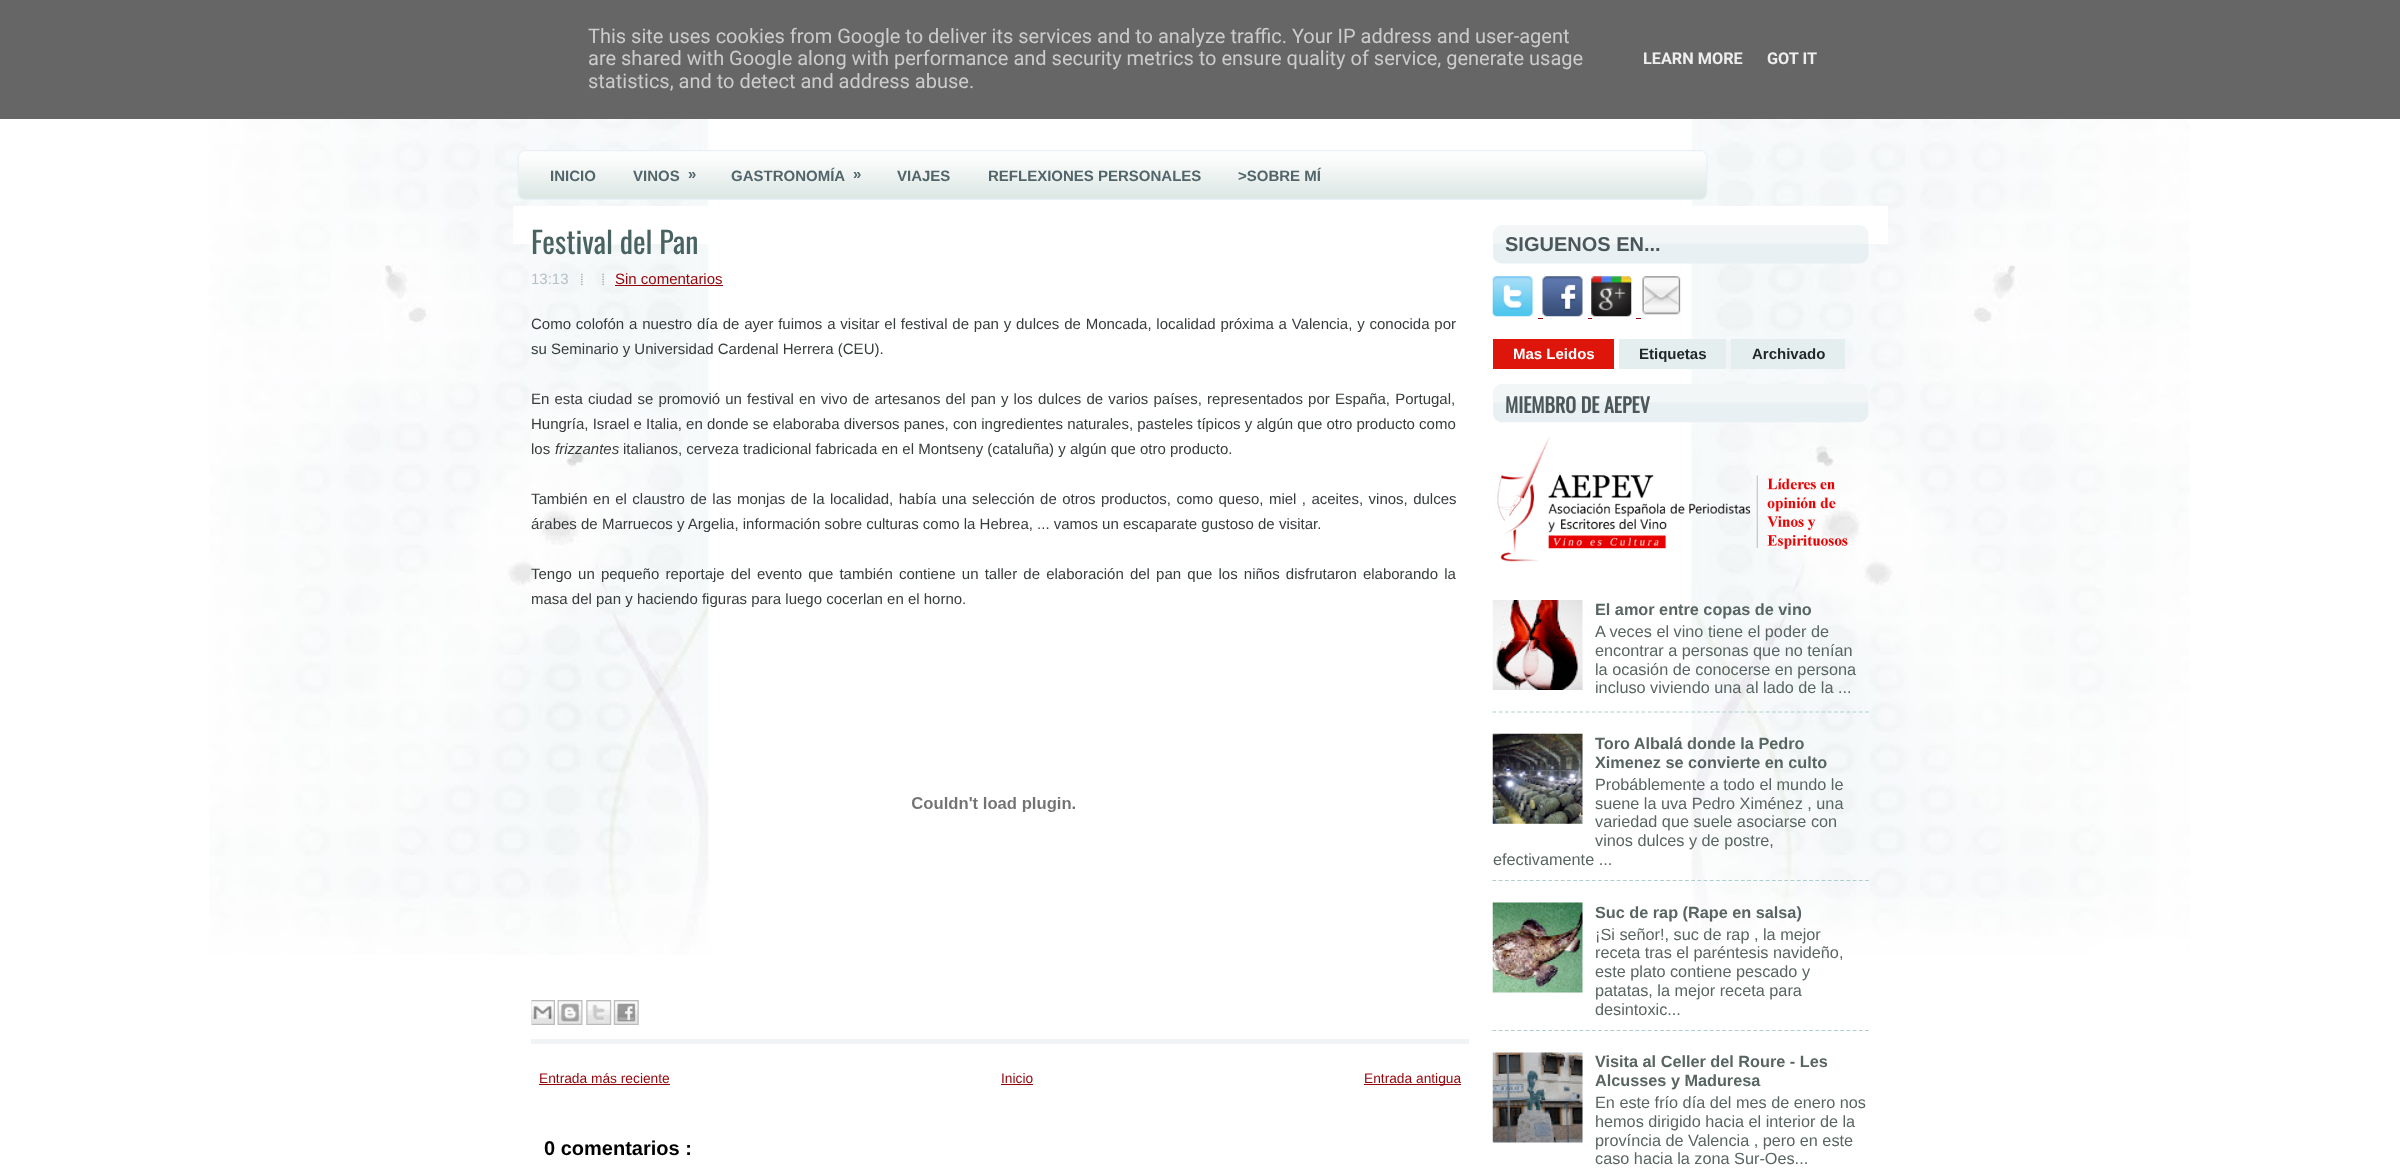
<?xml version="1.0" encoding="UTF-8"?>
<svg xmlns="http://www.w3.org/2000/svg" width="2400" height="1171">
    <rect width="100%" height="100%" fill="#FFFFFF"/>
    <image x="209" y="119" width="1981" height="836" href="img_01.png"/>
    <rect x="0" y="0" width="2400" height="119" fill="#666666"/>
    <text font-family="Roboto" font-size="20" fill="#CCCCCC">
        <tspan x="588" y="43">This site uses cookies from Google to deliver its services and to analyze traffic. Your IP address and user-agent</tspan>
        <tspan x="588" y="65">are shared with Google along with performance and security metrics to ensure quality of service, generate usage</tspan>
        <tspan x="588" y="88">statistics, and to detect and address abuse.</tspan>
    </text>
    <text x="1643" y="64" font-family="Roboto" font-size="16.25" font-weight="700" fill="#EEEEEE">LEARN MORE</text>
    <text x="1767" y="64" font-family="Roboto" font-size="16.25" font-weight="700" fill="#EEEEEE">GOT IT</text>
    <image x="517" y="150" width="1191" height="50" href="img_02.png"/>
    <text x="550" y="181" font-family="Liberation Sans" font-size="15" font-weight="700" fill="#52656A">INICIO</text>
    <text x="633" y="181" font-family="Liberation Sans" font-size="15" font-weight="700" fill="#52656A">VINOS</text>
    <text x="688" y="179" font-family="Liberation Sans" font-size="15" font-weight="700" fill="#52656A">»</text>
    <text x="731" y="181" font-family="Liberation Sans" font-size="15" font-weight="700" fill="#52656A">GASTRONOMÍA</text>
    <text x="853" y="179" font-family="Liberation Sans" font-size="15" font-weight="700" fill="#52656A">»</text>
    <text x="897" y="181" font-family="Liberation Sans" font-size="15" font-weight="700" fill="#52656A">VIAJES</text>
    <text x="988" y="181" font-family="Liberation Sans" font-size="15" font-weight="700" fill="#52656A">REFLEXIONES PERSONALES</text>
    <text x="1238" y="181" font-family="Liberation Sans" font-size="15" font-weight="700" fill="#52656A">&gt;SOBRE MÍ</text>
    <rect x="513" y="206" width="1375" height="38" fill="#FFFFFF"/>
    <rect x="531" y="1039" width="938" height="5" fill="#F0F4F4"/>
    <text x="531" y="254" font-family="Oswald" font-size="30" fill="#496262">Festival del Pan</text>
    <text x="531" y="284" font-family="Liberation Sans" font-size="15" fill="#B4C2C2">13:13</text>
    <image x="581" y="273" width="2" height="12" href="img_03.png"/>
    <image x="602" y="273" width="2" height="12" href="img_04.png"/>
    <text x="615" y="284" font-family="Liberation Sans" font-size="15" fill="#93040A">Sin comentarios</text>
    <rect x="615" y="285" width="108" height="1" fill="#93040A"/>
    <text font-family="Liberation Sans" font-size="15" fill="#373C3D">
        <tspan x="531" y="329" word-spacing="0.65">Como colofón a nuestro día de ayer fuimos a visitar el festival de pan y dulces de Moncada, localidad próxima a Valencia, y conocida por</tspan>
        <tspan x="531" y="354">su Seminario y Universidad Cardenal Herrera (CEU).</tspan>
    </text>
    <text font-family="Liberation Sans" font-size="15" fill="#373C3D">
        <tspan x="531" y="404" word-spacing="1">En esta ciudad se promovió un festival en vivo de artesanos del pan y los dulces de varios países, representados por España, Portugal,</tspan>
        <tspan x="531" y="429">Hungría, Israel e Italia, en donde se elaboraba diversos panes, con ingredientes naturales, pasteles típicos y algún que otro producto como</tspan>
        <tspan x="531" y="454">los</tspan>
    </text>
    <text x="555" y="454" font-family="Liberation Sans" font-size="15" font-style="italic" fill="#373C3D">frizzantes</text>
    <text x="623" y="454" font-family="Liberation Sans" font-size="15" fill="#373C3D">italianos, cerveza tradicional fabricada en el Montseny (cataluña) y algún que otro producto.</text>
    <text font-family="Liberation Sans" font-size="15" fill="#373C3D">
        <tspan x="531" y="504" word-spacing="1.25">También en el claustro de las monjas de la localidad, había una selección de otros productos, como queso, miel , aceites, vinos, dulces</tspan>
        <tspan x="531" y="529">árabes de Marruecos y Argelia, información sobre culturas como la Hebrea, ... vamos un escaparate gustoso de visitar.</tspan>
    </text>
    <text font-family="Liberation Sans" font-size="15" fill="#373C3D">
        <tspan x="531" y="579" word-spacing="2">Tengo un pequeño reportaje del evento que también contiene un taller de elaboración del pan que los niños disfrutaron elaborando la</tspan>
        <tspan x="531" y="604">masa del pan y haciendo figuras para luego cocerlan en el horno.</tspan>
    </text>
    <image x="912" y="797" width="163" height="15" href="img_05.png"/>
    <image x="531" y="1000" width="24" height="25" href="img_06.png"/>
    <image x="557" y="1000" width="26" height="25" href="img_07.png"/>
    <image x="586" y="1000" width="26" height="25" href="img_08.png"/>
    <image x="613" y="1000" width="26" height="25" href="img_09.png"/>
    <text x="539" y="1083" font-family="Liberation Sans" font-size="13.75" fill="#93040A">Entrada más reciente</text>
    <rect x="539" y="1084" width="131" height="1" fill="#93040A"/>
    <text x="1001" y="1083" font-family="Liberation Sans" font-size="13.75" fill="#93040A">Inicio</text>
    <rect x="1001" y="1084" width="32" height="1" fill="#93040A"/>
    <rect x="1364" y="1084" width="97" height="1" fill="#93040A"/>
    <text x="1364" y="1083" font-family="Liberation Sans" font-size="13.75" fill="#93040A">Entrada antigua</text>
    <text x="544" y="1155" font-family="Liberation Sans" font-size="20" font-weight="700" fill="#000000">0 comentarios :</text>
    <image x="1493" y="225" width="376" height="39" href="img_10.png"/>
    <text x="1505" y="251" font-family="Liberation Sans" font-size="20" font-weight="700" fill="#4B575A">SIGUENOS EN...</text>
    <image x="1492" y="276" width="41" height="41" href="img_11.png"/>
    <image x="1542" y="276" width="41" height="41" href="img_12.png"/>
    <image x="1591" y="276" width="41" height="41" href="img_13.png"/>
    <image x="1642" y="276" width="39" height="39" href="img_14.png"/>
    <rect x="1538" y="318" width="5" height="1" fill="#93040A"/>
    <rect x="1588" y="318" width="4" height="1" fill="#93040A"/>
    <rect x="1636" y="318" width="5" height="1" fill="#93040A"/>
    <rect x="1493" y="339" width="121" height="30" fill="#DD150A"/>
    <text x="1513" y="359" font-family="Liberation Sans" font-size="15" font-weight="700" fill="#FFFFFF">Mas Leidos</text>
    <rect x="1619" y="339" width="107" height="30" fill="#E5EEEE"/>
    <text x="1639" y="359" font-family="Liberation Sans" font-size="15" font-weight="700" fill="#20282A">Etiquetas</text>
    <rect x="1731" y="339" width="114" height="30" fill="#E5EEEE"/>
    <text x="1752" y="359" font-family="Liberation Sans" font-size="15" font-weight="700" fill="#20282A">Archivado</text>
    <image x="1493" y="384" width="376" height="39" href="img_15.png"/>
    <text x="1505" y="413" font-family="Oswald" font-size="20" font-weight="700" fill="#4B575A">MIEMBRO DE AEPEV</text>
    <image x="1497" y="437" width="351" height="125" href="img_16.png"/>
    <path d="M 1492.5 712 H 1869" fill="none" stroke="#AFCDCD" stroke-width="1.2" stroke-dasharray="3.75 2.46"/>
    <image x="1492" y="600" width="91" height="90" href="img_17.png"/>
    <text x="1595" y="615" font-family="Liberation Sans" font-size="16.25" font-weight="700" fill="#586562">El amor entre copas de vino</text>
    <text font-family="Liberation Sans" font-size="16.25" fill="#586562">
        <tspan x="1595" y="637">A veces el vino tiene el poder de</tspan>
        <tspan x="1595" y="656">encontrar a personas que no tenían</tspan>
        <tspan x="1595" y="675">la ocasión de conocerse en persona</tspan>
        <tspan x="1595" y="693">incluso viviendo una al lado de la ...</tspan>
    </text>
    <path d="M 1492.5 880.5 H 1869" fill="none" stroke="#AFCDCD" stroke-width="1.2" stroke-dasharray="3.75 2.46"/>
    <image x="1492" y="733" width="91" height="91" href="img_18.png"/>
    <text font-family="Liberation Sans" font-size="16.25" font-weight="700" fill="#586562">
        <tspan x="1595" y="749">Toro Albalá donde la Pedro</tspan>
        <tspan x="1595" y="768">Ximenez se convierte en culto</tspan>
    </text>
    <text font-family="Liberation Sans" font-size="16.25" fill="#586562">
        <tspan x="1595" y="790">Probáblemente a todo el mundo le</tspan>
        <tspan x="1595" y="809">suene la uva Pedro Ximénez , una</tspan>
        <tspan x="1595" y="827">variedad que suele asociarse con</tspan>
        <tspan x="1595" y="846">vinos dulces y de postre,</tspan>
    </text>
    <text x="1493" y="865" font-family="Liberation Sans" font-size="16.25" fill="#586562">efectivamente ...</text>
    <path d="M 1492.5 1030.5 H 1869" fill="none" stroke="#AFCDCD" stroke-width="1.2" stroke-dasharray="3.75 2.46"/>
    <image x="1492" y="902" width="91" height="91" href="img_19.png"/>
    <text x="1595" y="918" font-family="Liberation Sans" font-size="16.25" font-weight="700" fill="#586562">Suc de rap (Rape en salsa)</text>
    <text font-family="Liberation Sans" font-size="16.25" fill="#586562">
        <tspan x="1595" y="940">¡Si señor!, suc de rap , la mejor</tspan>
        <tspan x="1595" y="958">receta tras el paréntesis navideño,</tspan>
        <tspan x="1595" y="977">este plato contiene pescado y</tspan>
        <tspan x="1595" y="996">patatas, la mejor receta para</tspan>
        <tspan x="1595" y="1015">desintoxic...</tspan>
    </text>
    <image x="1492" y="1052" width="91" height="91" href="img_20.png"/>
    <text font-family="Liberation Sans" font-size="16.25" font-weight="700" fill="#586562">
        <tspan x="1595" y="1067">Visita al Celler del Roure - Les</tspan>
        <tspan x="1595" y="1086">Alcusses y Maduresa</tspan>
    </text>
    <text font-family="Liberation Sans" font-size="16.25" fill="#586562">
        <tspan x="1595" y="1108">En este frío día del mes de enero nos</tspan>
        <tspan x="1595" y="1127">hemos dirigido hacia el interior de la</tspan>
        <tspan x="1595" y="1146">província de Valencia , pero en este</tspan>
        <tspan x="1595" y="1164">caso hacia la zona Sur-Oes...</tspan>
    </text>
</svg>
